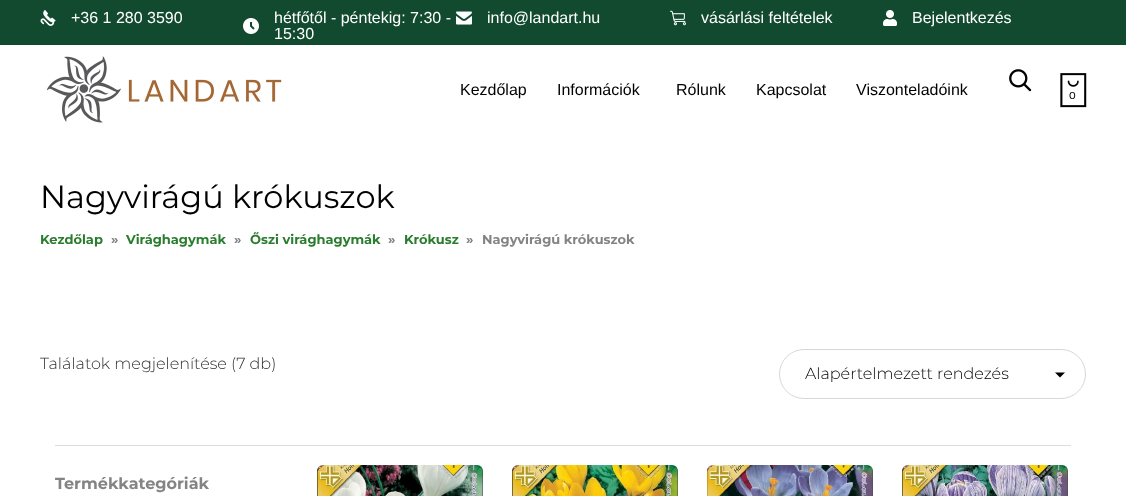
<?xml version="1.0" encoding="UTF-8"?>
<svg xmlns="http://www.w3.org/2000/svg" width="1126" height="496">
    <rect width="100%" height="100%" fill="#FFFFFF"/>
    <rect x="0" y="0" width="1126" height="45" fill="#124A2F"/>
    <image x="40" y="10" width="16" height="16" href="img_01.png"/>
    <text x="71" y="23" font-family="Liberation Sans" font-size="16" fill="#FFFFFF">+36 1 280 3590</text>
    <image x="243" y="18" width="16" height="16" href="img_02.png"/>
    <text font-family="Liberation Sans" font-size="16" fill="#FFFFFF">
        <tspan x="274" y="23">hétfőtől - péntekig: 7:30 -</tspan>
        <tspan x="274" y="39">15:30</tspan>
    </text>
    <image x="456" y="11" width="16" height="14" href="img_03.png"/>
    <text x="487" y="23" font-family="Liberation Sans" font-size="16" fill="#FFFFFF">info@landart.hu</text>
    <image x="670" y="10" width="16" height="16" href="img_04.png"/>
    <text x="701" y="23" font-family="Liberation Sans" font-size="16" fill="#FFFFFF">vásárlási feltételek</text>
    <image x="883" y="10" width="14" height="16" href="img_05.png"/>
    <text x="912" y="23" font-family="Liberation Sans" font-size="16" fill="#FFFFFF">Bejelentkezés</text>
    <image x="47" y="56" width="235" height="67" href="img_06.png"/>
    <text x="460" y="95" font-family="Liberation Sans" font-size="16" fill="#000000">Kezdőlap</text>
    <text x="557" y="95" font-family="Liberation Sans" font-size="16" fill="#000000">Információk</text>
    <text x="676" y="95" font-family="Liberation Sans" font-size="16" fill="#000000">Rólunk</text>
    <text x="756" y="95" font-family="Liberation Sans" font-size="16" fill="#000000">Kapcsolat</text>
    <text x="856" y="95" font-family="Liberation Sans" font-size="16" fill="#000000">Viszonteladóink</text>
    <image x="1009" y="69" width="23" height="23" href="img_07.png"/>
    <image x="1060" y="73" width="27" height="35" href="img_08.png"/>
    <text x="1069" y="99" font-family="Montserrat" font-size="10" font-weight="500" fill="#000000">0</text>
    <text x="40" y="208" font-family="Montserrat" font-size="32" fill="#000000">Nagyvirágú krókuszok</text>
    <text x="40" y="244" font-family="Montserrat" font-size="13" font-weight="700" fill="#2A7D2E">Kezdőlap</text>
    <text x="111" y="244" font-family="Montserrat" font-size="13" font-weight="700" fill="#848484">»</text>
    <text x="126" y="244" font-family="Montserrat" font-size="13" font-weight="700" fill="#2A7D2E">Virághagymák</text>
    <text x="234" y="244" font-family="Montserrat" font-size="13" font-weight="700" fill="#848484">»</text>
    <text x="250" y="244" font-family="Montserrat" font-size="13" font-weight="700" fill="#2A7D2E">Őszi virághagymák</text>
    <text x="388" y="244" font-family="Montserrat" font-size="13" font-weight="700" fill="#848484">»</text>
    <text x="404" y="244" font-family="Montserrat" font-size="13" font-weight="700" fill="#2A7D2E">Krókusz</text>
    <text x="466" y="244" font-family="Montserrat" font-size="13" font-weight="700" fill="#848484">»</text>
    <text x="482" y="244" font-family="Montserrat" font-size="13" font-weight="700" fill="#848484">Nagyvirágú krókuszok</text>
    <text x="40" y="369" font-family="Montserrat" font-size="16" font-weight="300" fill="#2F2F2F">Találatok megjelenítése (7 db)</text>
    <path d="M 1055 372.5 L 1060 377.5 L 1065 372.5 Z" fill="#000000"/>
    <rect x="779.5" y="349.5" width="306" height="49" rx="24.5" fill="none" stroke="#D8D8D8"/>
    <text x="805" y="379" font-family="Montserrat" font-size="16" font-weight="300" fill="#000000">Alapértelmezett rendezés</text>
    <rect x="55" y="445" width="1016" height="1" fill="#DDDDDD"/>
    <text x="55" y="489" font-family="Montserrat" font-size="16" font-weight="700" fill="#848484">Termékkategóriák</text>
    <image x="317" y="465" width="166" height="31" href="img_09.png"/>
    <image x="512" y="465" width="166" height="31" href="img_10.png"/>
    <image x="707" y="465" width="166" height="31" href="img_11.png"/>
    <image x="902" y="465" width="166" height="31" href="img_12.png"/>
</svg>
